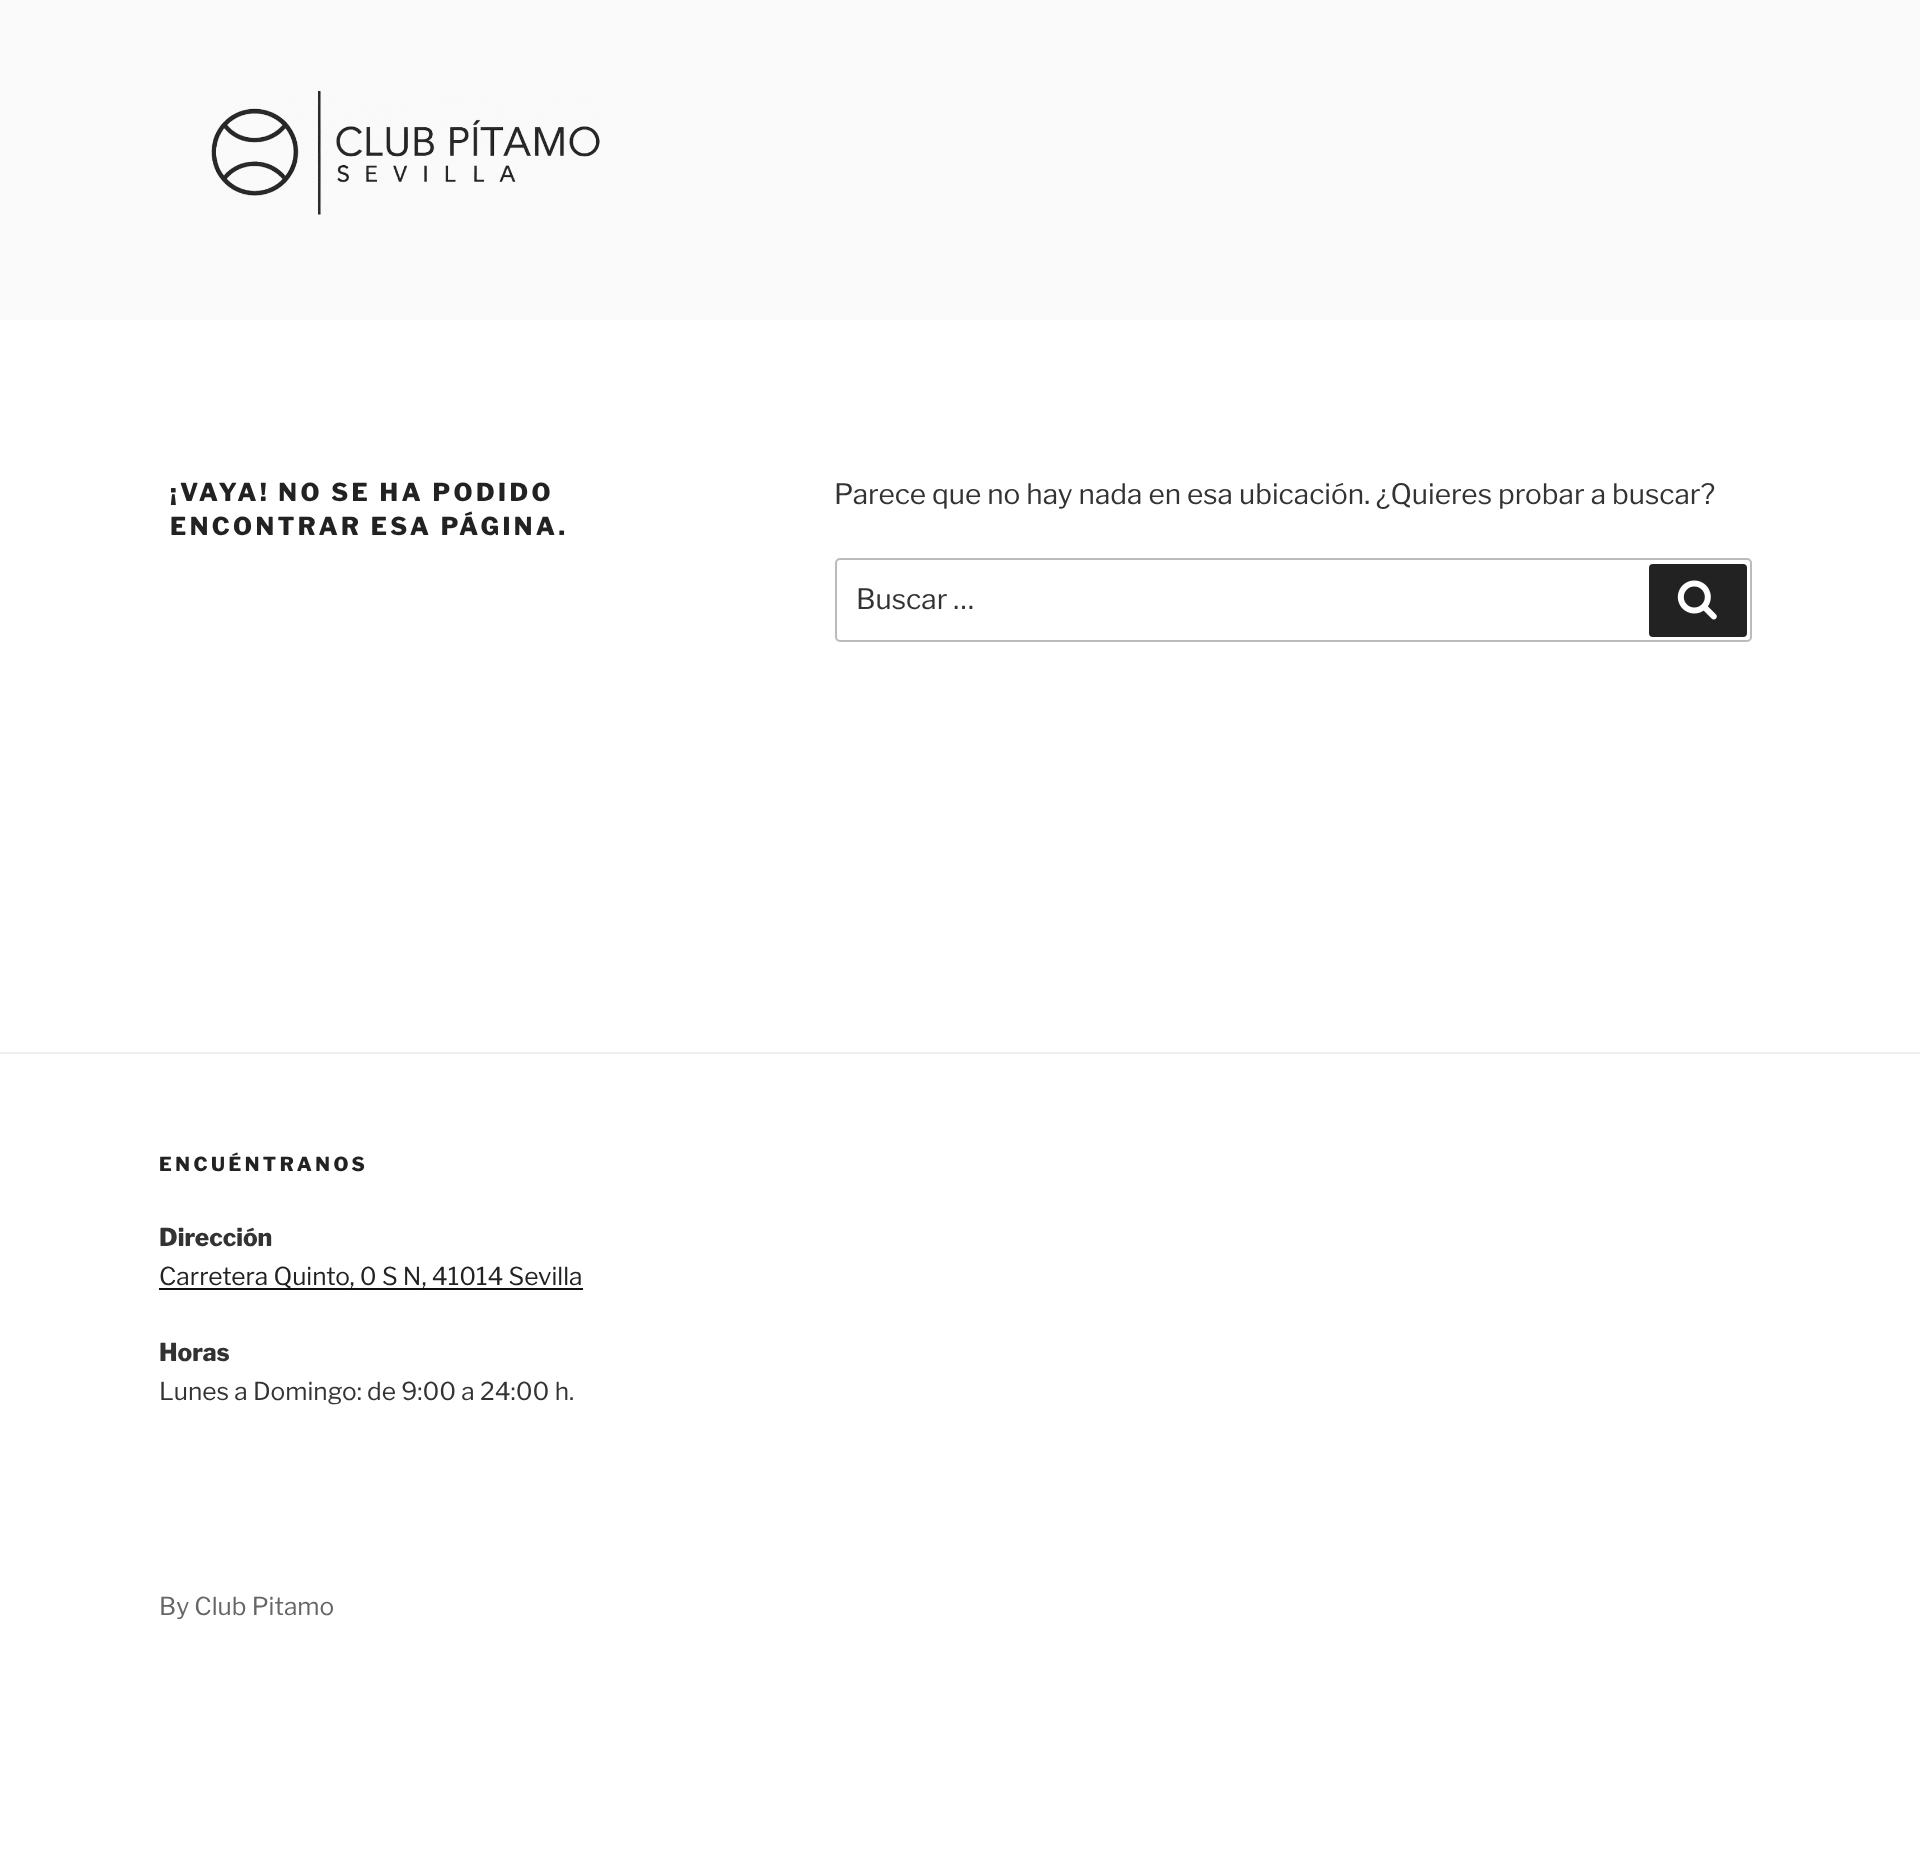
<?xml version="1.0" encoding="UTF-8"?>
<svg xmlns="http://www.w3.org/2000/svg" width="1920" height="1862">
    <rect width="100%" height="100%" fill="#FFFFFF"/>
    <rect x="0" y="0" width="1920" height="320" fill="#FAFAFA"/>
    <image x="211" y="90" width="389" height="125" href="img_01.png"/>
    <text font-family="Libre Franklin" font-size="24.5" font-weight="100" letter-spacing="3.4" fill="#222222">
        <tspan x="170" y="501">¡VAYA! NO SE HA PODIDO</tspan>
        <tspan x="170" y="535">ENCONTRAR ESA PÁGINA.</tspan>
    </text>
    <text x="834" y="504" font-family="'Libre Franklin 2'" font-size="28" font-weight="100" fill="#333333">Parece que no hay nada en esa ubicación. ¿Quieres probar a buscar?</text>
    <rect x="836" y="559" width="915" height="82" rx="4" fill="none" stroke="#BBBBBB" stroke-width="2"/>
    <text x="856" y="609" font-family="'Libre Franklin 2'" font-size="28" font-weight="100" fill="#333333">Buscar …</text>
    <rect x="1649" y="564" width="98" height="73" rx="4" fill="#222222"/>
    <image x="1677" y="580" width="40" height="40" href="img_02.png"/>
    <rect x="0" y="1052" width="1920" height="2" fill="#EEEEEE"/>
    <text x="159" y="1171" font-family="Libre Franklin" font-size="19.25" font-weight="100" letter-spacing="3.5" fill="#222222">ENCUÉNTRANOS</text>
    <text x="159" y="1246" font-family="Libre Franklin" font-size="24.5" font-weight="100" fill="#333333">Dirección</text>
    <rect x="159" y="1288" width="424" height="2" fill="#0F0F0F"/>
    <text x="159" y="1285" font-family="'Libre Franklin 2'" font-size="24.5" font-weight="100" fill="#222222">Carretera Quinto, 0 S N, 41014 Sevilla</text>
    <text x="159" y="1361" font-family="Libre Franklin" font-size="24.5" font-weight="100" fill="#333333">Horas</text>
    <text x="159" y="1400" font-family="'Libre Franklin 2'" font-size="24.5" font-weight="100" fill="#333333">Lunes a Domingo: de 9:00 a 24:00 h.</text>
    <text x="159" y="1615" font-family="'Libre Franklin 2'" font-size="24.5" font-weight="100" fill="#666666">By Club Pitamo</text>
</svg>
